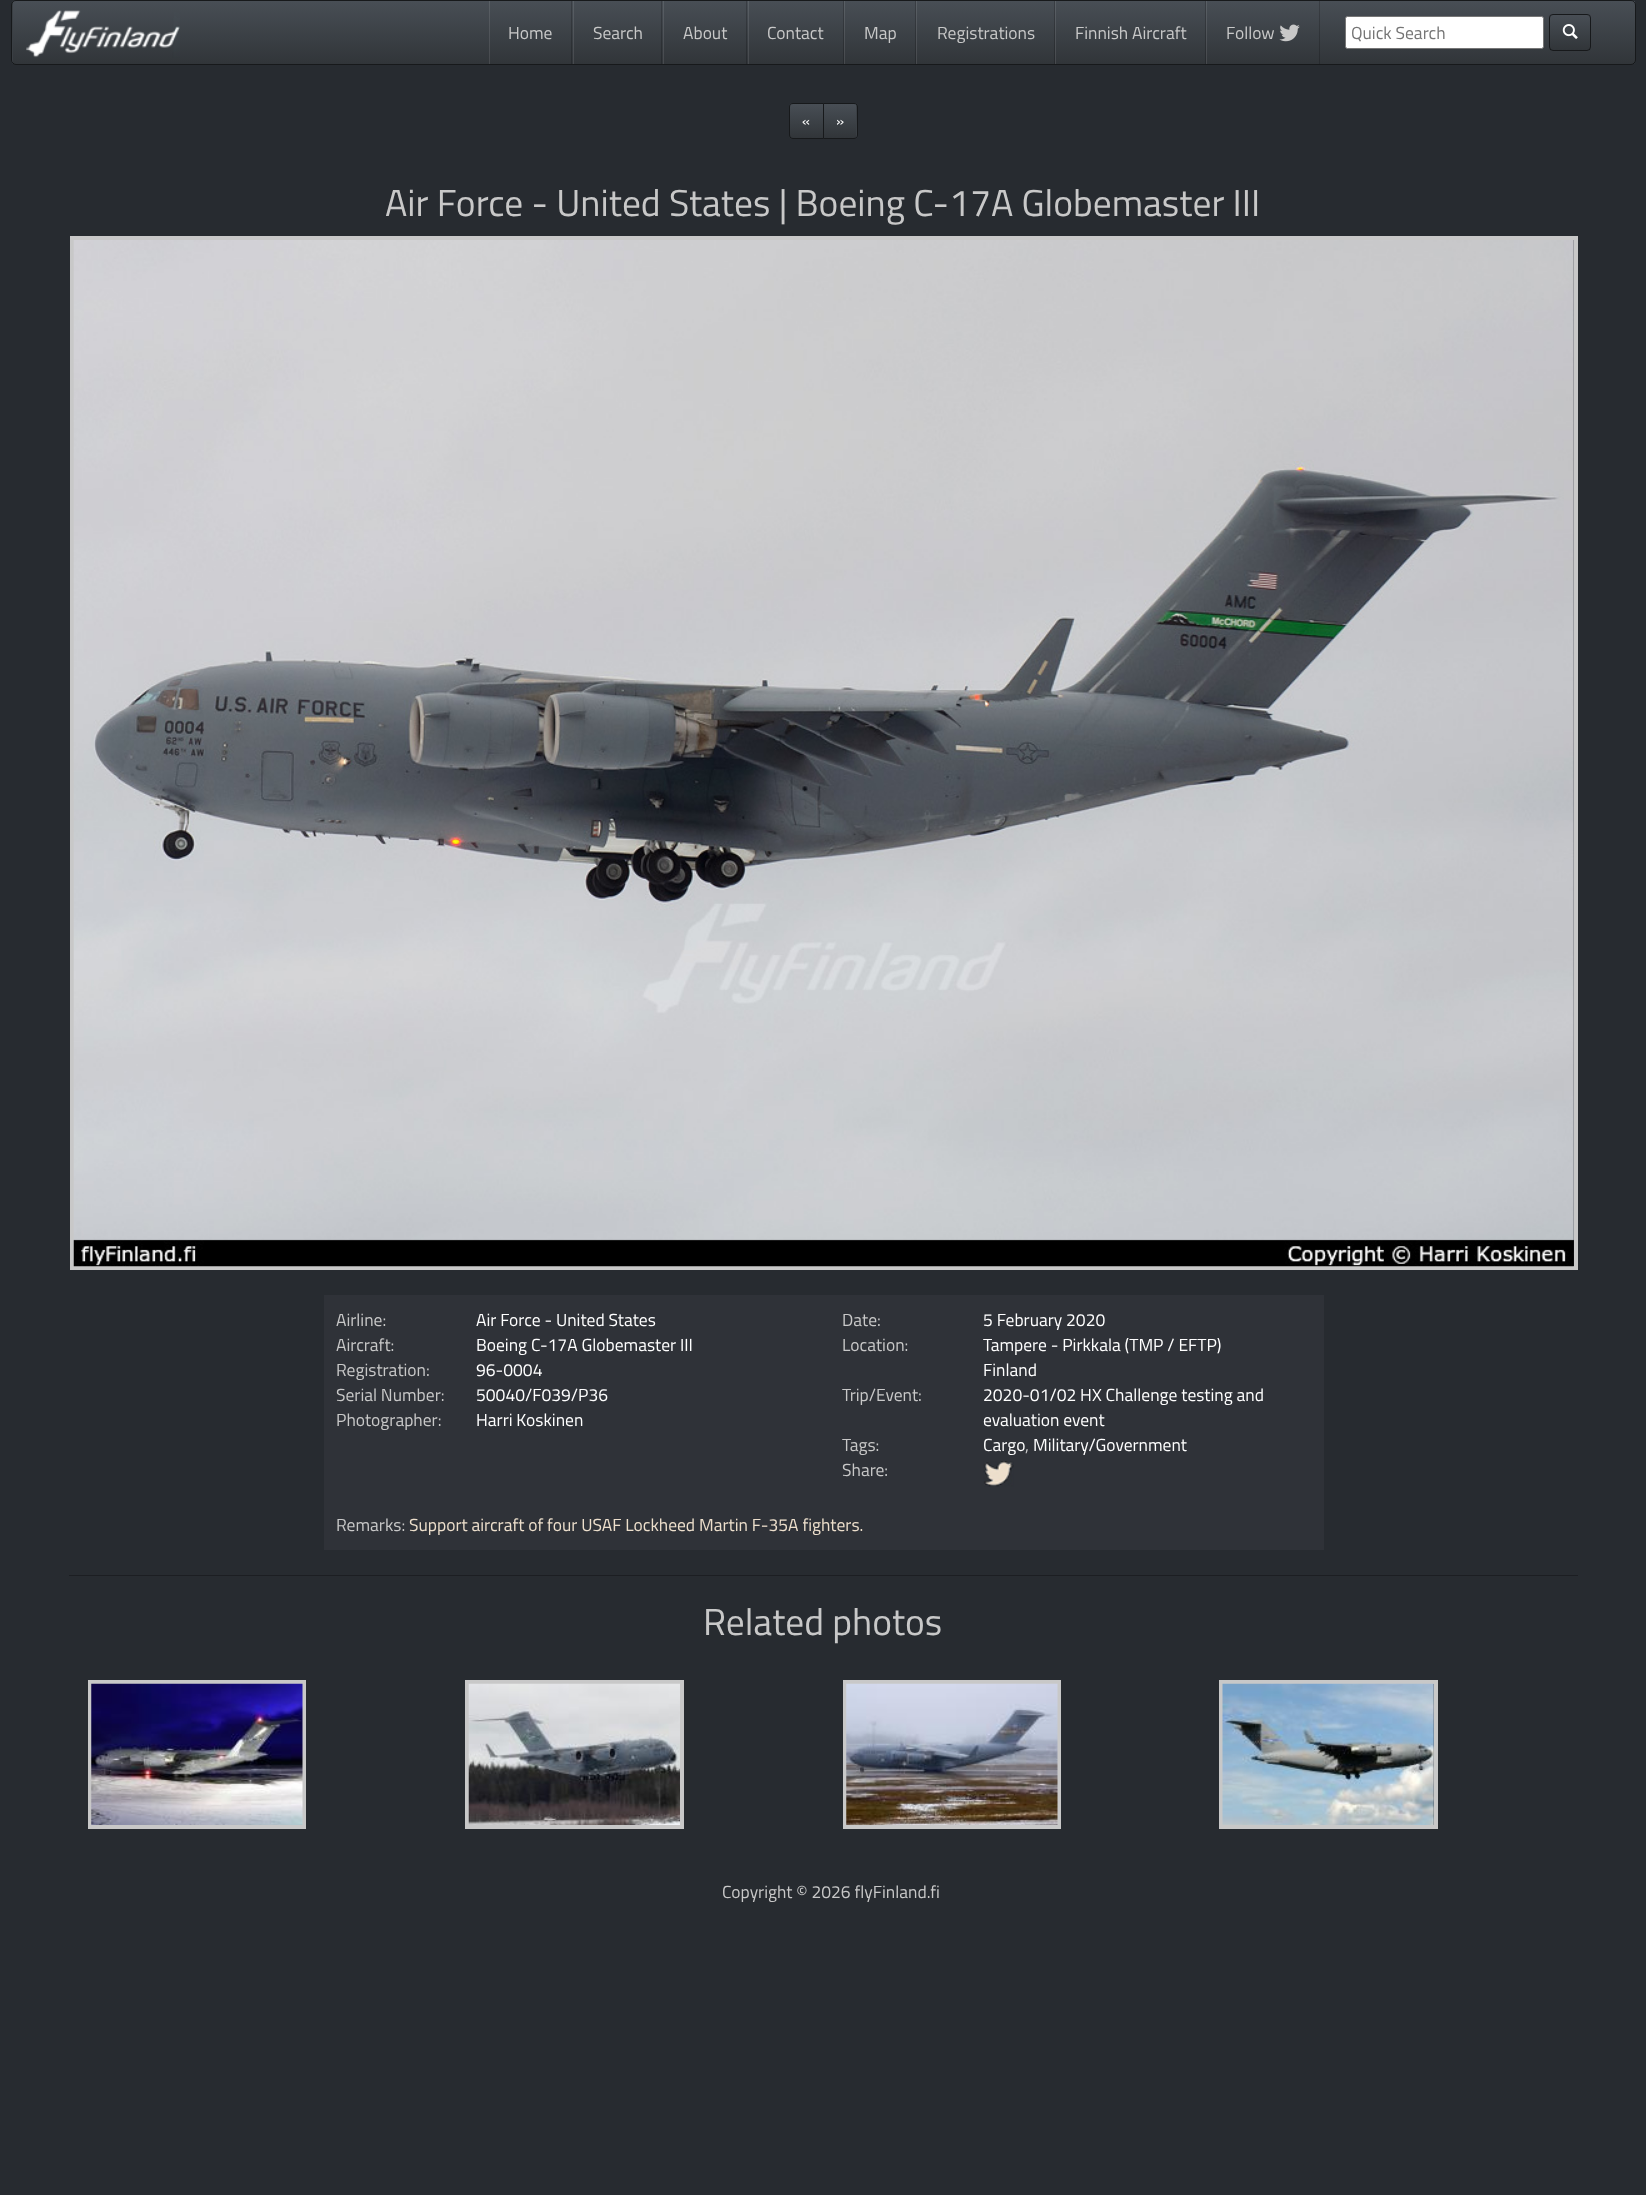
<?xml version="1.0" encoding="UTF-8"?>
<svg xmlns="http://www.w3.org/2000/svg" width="1646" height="2195">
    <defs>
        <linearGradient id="g1" gradientUnits="userSpaceOnUse" x1="824" y1="1.2" x2="824" y2="64"><stop offset="0" stop-color="#484E55"/><stop offset="0.6" stop-color="#3A3F44"/><stop offset="1" stop-color="#313539"/></linearGradient>
        <linearGradient id="g2" gradientUnits="userSpaceOnUse" x1="824" y1="1.2" x2="824" y2="64"><stop offset="0" stop-color="#5A6066"/><stop offset="0.6" stop-color="#4E5257"/><stop offset="1" stop-color="#46494D"/></linearGradient>
        <linearGradient id="g3" gradientUnits="userSpaceOnUse" x1="824" y1="1.2" x2="824" y2="64"><stop offset="0" stop-color="#3A3E44"/><stop offset="0.6" stop-color="#2E3236"/><stop offset="1" stop-color="#272A2E"/></linearGradient>
        <clipPath id="clip1"><rect x="1549" y="14" width="42" height="37" rx="4"/></clipPath>
        <linearGradient id="g4" gradientUnits="userSpaceOnUse" x1="1570" y1="15" x2="1570" y2="50"><stop offset="0" stop-color="#484E55"/><stop offset="0.6" stop-color="#3A3F44"/><stop offset="1" stop-color="#313539"/></linearGradient>
        <linearGradient id="g5" gradientUnits="userSpaceOnUse" x1="806" y1="104" x2="806" y2="138"><stop offset="0" stop-color="#484E55"/><stop offset="0.6" stop-color="#3A3F44"/><stop offset="1" stop-color="#313539"/></linearGradient>
        <linearGradient id="g6" gradientUnits="userSpaceOnUse" x1="840" y1="104" x2="840" y2="138"><stop offset="0" stop-color="#484E55"/><stop offset="0.6" stop-color="#3A3F44"/><stop offset="1" stop-color="#313539"/></linearGradient>
    </defs>
    <rect width="100%" height="100%" fill="#272B30"/>
    <rect x="11" y="0" width="1625" height="65" rx="5" fill="#3A3F44"/>
    <rect x="13" y="1" width="1622" height="63" fill="url(#g1)"/>
    <rect x="1206" y="1" width="1" height="63" fill="url(#g2)"/>
    <rect x="1319" y="1" width="1" height="63" fill="url(#g3)"/>
    <rect x="1055" y="1" width="1" height="63" fill="url(#g2)"/>
    <rect x="1205" y="1" width="1" height="63" fill="url(#g3)"/>
    <rect x="916" y="1" width="1" height="63" fill="url(#g2)"/>
    <rect x="1054" y="1" width="1" height="63" fill="url(#g3)"/>
    <rect x="844" y="1" width="1" height="63" fill="url(#g2)"/>
    <rect x="915" y="1" width="1" height="63" fill="url(#g3)"/>
    <rect x="748" y="1" width="1" height="63" fill="url(#g2)"/>
    <rect x="843" y="1" width="1" height="63" fill="url(#g3)"/>
    <rect x="663" y="1" width="1" height="63" fill="url(#g2)"/>
    <rect x="746" y="1" width="1" height="63" fill="url(#g3)"/>
    <rect x="573" y="1" width="1" height="63" fill="url(#g2)"/>
    <rect x="661" y="1" width="1" height="63" fill="url(#g3)"/>
    <rect x="489" y="1" width="1" height="63" fill="url(#g2)"/>
    <rect x="571" y="1" width="1" height="63" fill="url(#g3)"/>
    <rect x="11.5" y="0.5" width="1624" height="64" rx="4.5" fill="none" stroke="#000000" stroke-opacity="0.6"/>
    <image x="26" y="10" width="154" height="48" href="img_01.png"/>
    <text x="508" y="39" font-family="Titillium Web" font-size="17.5" fill="#C8C8C8">Home</text>
    <text x="593" y="39" font-family="Titillium Web" font-size="17.5" fill="#C8C8C8">Search</text>
    <text x="683" y="39" font-family="Titillium Web" font-size="17.5" fill="#C8C8C8">About</text>
    <text x="767" y="39" font-family="Titillium Web" font-size="17.5" fill="#C8C8C8">Contact</text>
    <text x="864" y="39" font-family="Titillium Web" font-size="17.5" fill="#C8C8C8">Map</text>
    <text x="937" y="39" font-family="Titillium Web" font-size="17.5" fill="#C8C8C8">Registrations</text>
    <text x="1075" y="39" font-family="Titillium Web" font-size="17.5" fill="#C8C8C8">Finnish Aircraft</text>
    <text x="1226" y="39" font-family="Titillium Web" font-size="17.5" fill="#C8C8C8">Follow</text>
    <image x="1279" y="24" width="21" height="18" href="img_02.png"/>
    <rect x="1345.5" y="16.5" width="198" height="32" rx="2" fill="#FFFFFF" stroke="#767676"/>
    <text x="1351" y="39" font-family="Titillium Web" font-size="17.5" fill="#757575">Quick Search</text>
    <rect x="1549" y="14" width="42" height="37" rx="4" fill="#3A3F44"/>
    <g clip-path="url(#clip1)">
        <rect x="1550" y="15" width="40" height="35" fill="url(#g4)"/>
    </g>
    <rect x="1549.5" y="14.5" width="41" height="36" rx="3.5" fill="none" stroke="#000000" stroke-opacity="0.6"/>
    <image x="1562" y="24" width="16" height="15" href="img_03.png"/>
    <path d="M 793 103 H 824 V 139 H 793 C 791 139 789 137 789 135 V 107 C 789 105 791 103 793 103 Z" fill="#3A3F44"/>
    <rect x="790" y="104" width="33" height="34" fill="url(#g5)"/>
    <path d="M 793 103.5 H 823.5 V 138.5 H 793 C 791 138.5 789.5 137 789.5 135 V 107 C 789.5 105 791 103.5 793 103.5 Z" fill="none" stroke="#000000" stroke-opacity="0.6"/>
    <text x="802" y="126" font-family="Titillium Web" font-size="15" fill="#FFFFFF">«</text>
    <path d="M 823 103 H 854 C 856 103 858 105 858 107 V 135 C 858 137 856 139 854 139 H 823 Z" fill="#3A3F44"/>
    <rect x="824" y="104" width="32" height="34" fill="url(#g6)"/>
    <path d="M 823.5 103.5 H 854 C 856 103.5 857.5 105 857.5 107 V 135 C 857.5 137 856 138.5 854 138.5 H 823.5 Z" fill="none" stroke="#000000" stroke-opacity="0.6"/>
    <text x="836" y="126" font-family="Titillium Web" font-size="15" fill="#FFFFFF">»</text>
    <text x="385" y="216" font-family="Titillium Web" font-size="37.5" fill="#C8C8C8">Air Force - United States | Boeing C-17A Globemaster III</text>
    <rect x="72" y="238" width="1504" height="1030" fill="none" stroke="#C8C8C8" stroke-width="4"/>
    <image x="73" y="240" width="1501" height="1027" href="img_04.png"/>
    <rect x="324" y="1295" width="1000" height="255" fill="#2F3238"/>
    <text x="336" y="1326" font-family="Titillium Web" font-size="17.5" fill="#C8C8C8">Airline:</text>
    <text x="476" y="1326" font-family="Titillium Web" font-size="17.5" fill="#FFFFFF">Air Force - United States</text>
    <text x="336" y="1351" font-family="Titillium Web" font-size="17.5" fill="#C8C8C8">Aircraft:</text>
    <text x="476" y="1351" font-family="Titillium Web" font-size="17.5" fill="#FFFFFF">Boeing C-17A Globemaster III</text>
    <text x="336" y="1376" font-family="Titillium Web" font-size="17.5" fill="#C8C8C8">Registration:</text>
    <text x="476" y="1376" font-family="Titillium Web" font-size="17.5" fill="#FFFFFF">96-0004</text>
    <text x="336" y="1401" font-family="Titillium Web" font-size="17.5" fill="#C8C8C8">Serial Number:</text>
    <text x="476" y="1401" font-family="Titillium Web" font-size="17.5" fill="#FFFFFF">50040/F039/P36</text>
    <text x="336" y="1426" font-family="Titillium Web" font-size="17.5" fill="#C8C8C8">Photographer:</text>
    <text x="476" y="1426" font-family="Titillium Web" font-size="17.5" fill="#FFFFFF">Harri Koskinen</text>
    <text x="842" y="1326" font-family="Titillium Web" font-size="17.5" fill="#C8C8C8">Date:</text>
    <text x="983" y="1326" font-family="Titillium Web" font-size="17.5" fill="#FFFFFF">5 February 2020</text>
    <text x="842" y="1351" font-family="Titillium Web" font-size="17.5" fill="#C8C8C8">Location:</text>
    <text font-family="Titillium Web" font-size="17.5" fill="#FFFFFF">
        <tspan x="983" y="1351">Tampere - Pirkkala (TMP / EFTP)</tspan>
        <tspan x="983" y="1376">Finland</tspan>
    </text>
    <text x="842" y="1401" font-family="Titillium Web" font-size="17.5" fill="#C8C8C8">Trip/Event:</text>
    <text font-family="Titillium Web" font-size="17.5" fill="#FFFFFF">
        <tspan x="983" y="1401">2020-01/02 HX Challenge testing and</tspan>
        <tspan x="983" y="1426">evaluation event</tspan>
    </text>
    <text x="842" y="1451" font-family="Titillium Web" font-size="17.5" fill="#C8C8C8">Tags:</text>
    <text x="983" y="1451" font-family="Titillium Web" font-size="17.5" fill="#FFFFFF">Cargo</text>
    <text x="1025" y="1451" font-family="Titillium Web" font-size="17.5" fill="#C8C8C8">,</text>
    <text x="1033" y="1451" font-family="Titillium Web" font-size="17.5" fill="#FFFFFF">Military/Government</text>
    <text x="842" y="1476" font-family="Titillium Web" font-size="17.5" fill="#C8C8C8">Share:</text>
    <image x="983" y="1461" width="31" height="26" href="img_05.png"/>
    <text x="336" y="1531" font-family="Titillium Web" font-size="17.5" fill="#C8C8C8">Remarks:</text>
    <text x="409" y="1531" font-family="Titillium Web" font-size="17.5" fill="#EDDFCC">Support aircraft of four USAF Lockheed Martin F-35A fighters.</text>
    <rect x="69" y="1575" width="1509" height="1" fill="#1C1E22"/>
    <text x="703" y="1635" font-family="Titillium Web" font-size="37.5" fill="#C8C8C8">Related photos</text>
    <rect x="90" y="1682" width="214" height="145" fill="none" stroke="#C8C8C8" stroke-width="4"/>
    <image x="91" y="1683" width="212" height="142" href="img_06.png"/>
    <rect x="467" y="1682" width="215" height="145" fill="none" stroke="#C8C8C8" stroke-width="4"/>
    <image x="468" y="1683" width="212" height="142" href="img_07.png"/>
    <rect x="845" y="1682" width="214" height="145" fill="none" stroke="#C8C8C8" stroke-width="4"/>
    <image x="846" y="1683" width="212" height="142" href="img_08.png"/>
    <rect x="1221" y="1682" width="215" height="145" fill="none" stroke="#C8C8C8" stroke-width="4"/>
    <image x="1222" y="1683" width="212" height="142" href="img_09.png"/>
    <text x="722" y="1898" font-family="Titillium Web" font-size="17.5" fill="#C8C8C8">Copyright © 2026 flyFinland.fi</text>
</svg>
